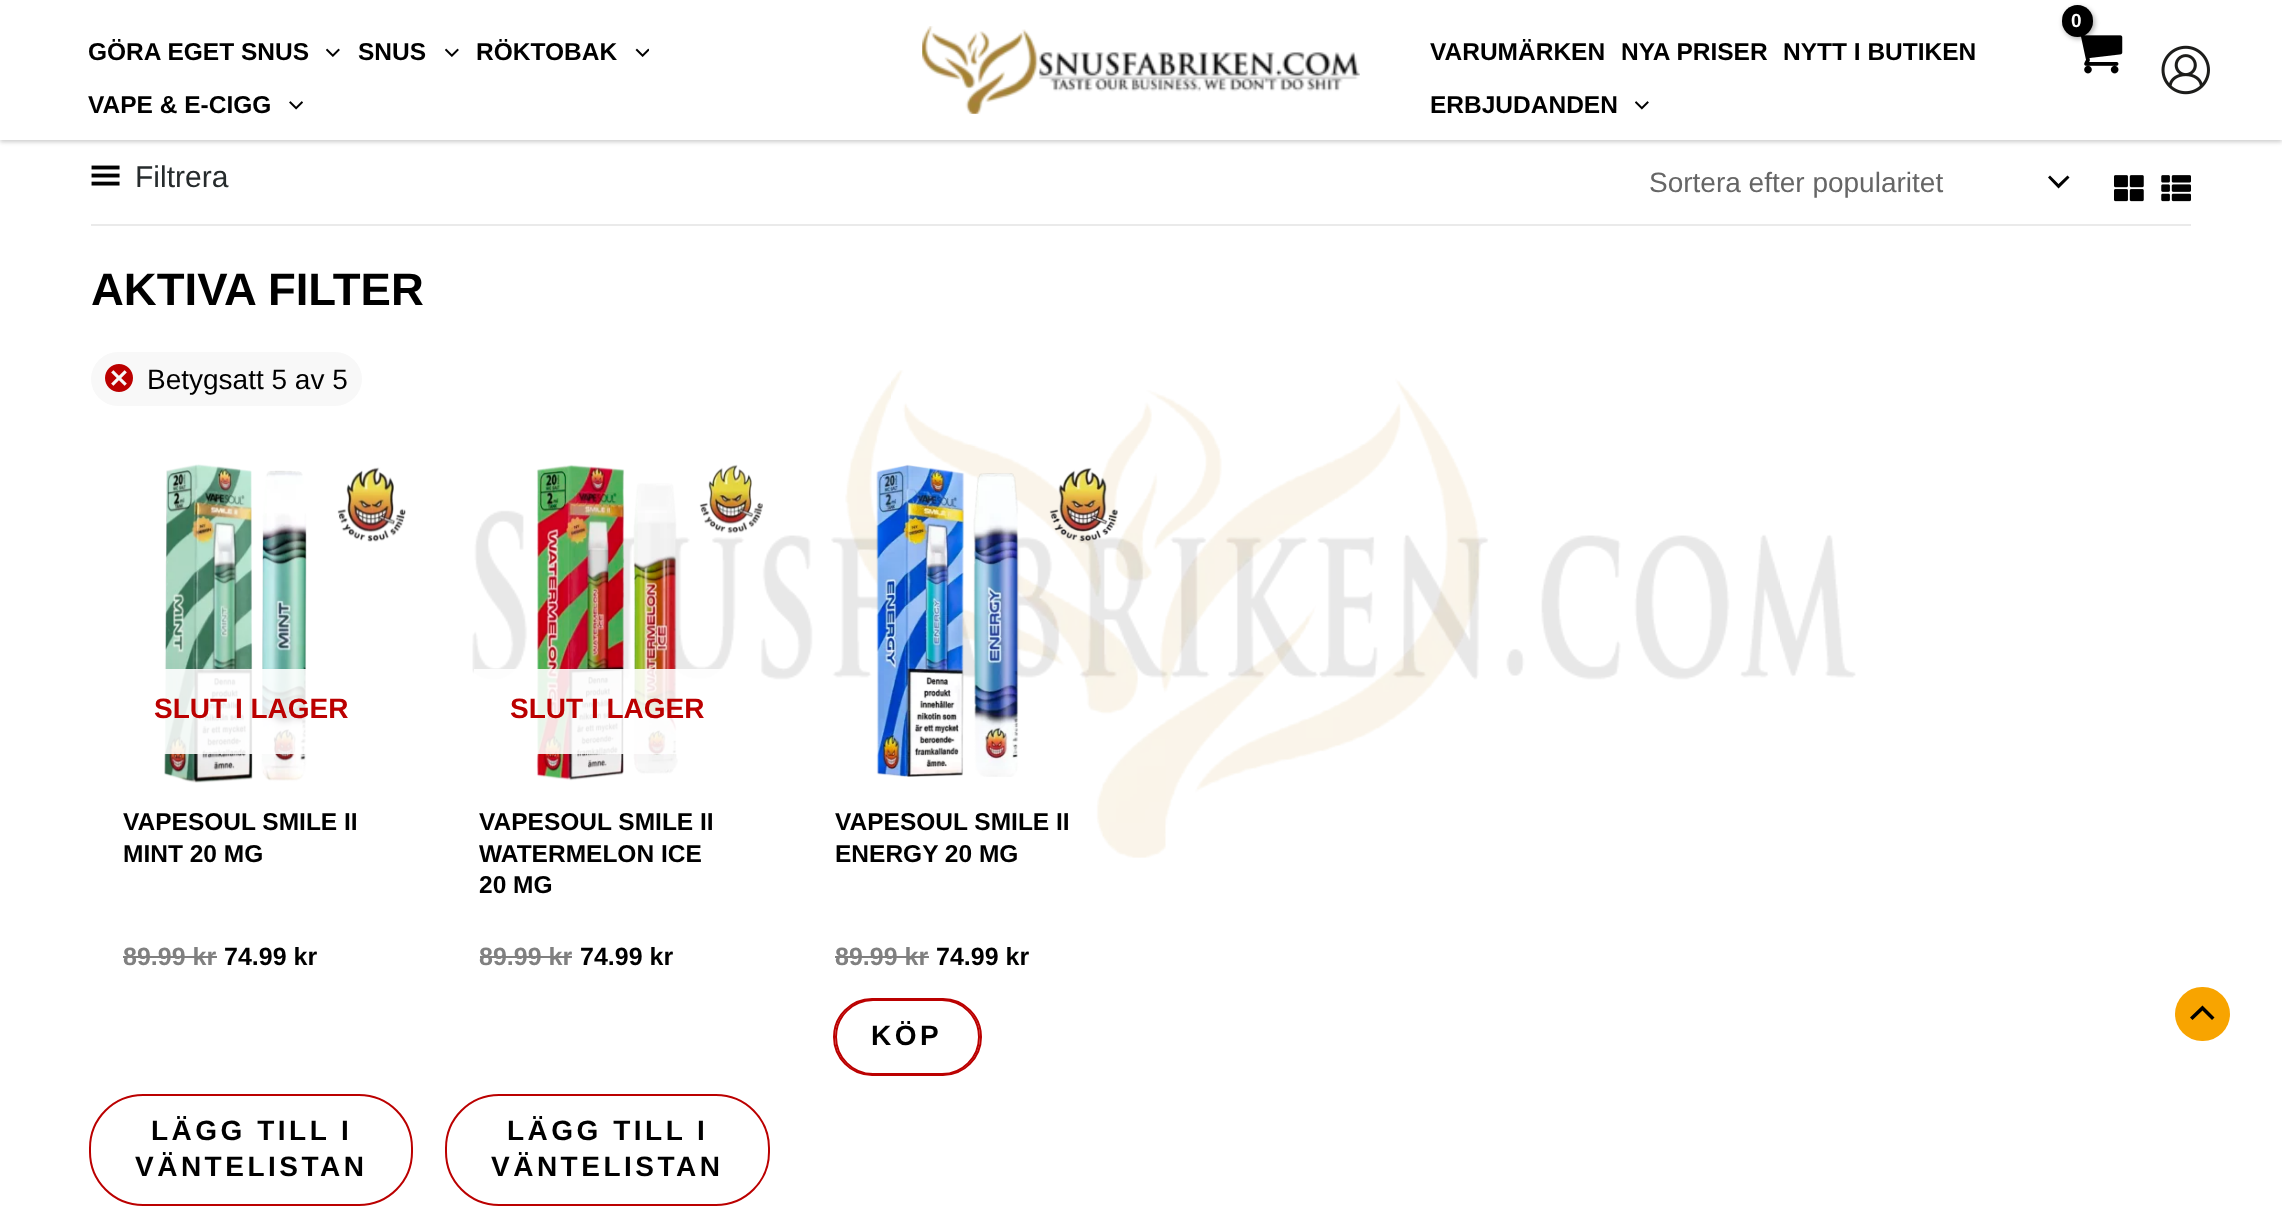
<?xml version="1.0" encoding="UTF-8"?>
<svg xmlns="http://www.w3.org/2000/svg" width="2282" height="1216">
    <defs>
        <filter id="blur1" x="-50%" y="-200%" width="200%" height="500%"><feGaussianBlur stdDeviation="2"/></filter>
        <filter id="blur2" x="-50%" y="-200%" width="200%" height="500%"><feGaussianBlur stdDeviation="2.5"/></filter>
    </defs>
    <rect width="100%" height="100%" fill="#FFFFFF"/>
    <rect x="0" y="2" width="2282" height="140" fill="#000000" fill-opacity="0.2" filter="url(#blur1)"/>
    <rect x="0" y="0" width="2282" height="140" fill="#FFFFFF"/>
    <text x="88" y="60" font-family="Liberation Sans" font-size="24.5" font-weight="700" fill="#000000">GÖRA EGET SNUS</text>
    <image x="326" y="48" width="14" height="9" href="img_01.png"/>
    <text x="358" y="60" font-family="Liberation Sans" font-size="24.5" font-weight="700" fill="#000000">SNUS</text>
    <image x="445" y="48" width="14" height="9" href="img_01.png"/>
    <text x="476" y="60" font-family="Liberation Sans" font-size="24.5" font-weight="700" fill="#000000">RÖKTOBAK</text>
    <image x="635" y="48" width="14" height="9" href="img_02.png"/>
    <text x="88" y="113" font-family="Liberation Sans" font-size="24.5" font-weight="700" fill="#000000">VAPE &amp; E-CIGG</text>
    <image x="289" y="101" width="14" height="9" href="img_03.png"/>
    <image x="922" y="26" width="438" height="88" href="img_04.png"/>
    <image x="2080" y="35" width="43" height="39" href="img_05.png"/>
    <rect x="2063" y="7" width="32" height="32" rx="16" fill="#000000" fill-opacity="0.3" filter="url(#blur2)"/>
    <rect x="2062" y="5" width="31" height="32" rx="15.5" fill="#000000"/>
    <text x="2071" y="27" font-family="Liberation Sans" font-size="19" font-weight="700" letter-spacing="-1" fill="#FFFFFF">0</text>
    <text x="1430" y="60" font-family="Liberation Sans" font-size="24.5" font-weight="700" fill="#000000">VARUMÄRKEN</text>
    <text x="1621" y="60" font-family="Liberation Sans" font-size="24.5" font-weight="700" fill="#000000">NYA PRISER</text>
    <text x="1783" y="60" font-family="Liberation Sans" font-size="24.5" font-weight="700" fill="#000000">NYTT I BUTIKEN</text>
    <text x="1430" y="113" font-family="Liberation Sans" font-size="24.5" font-weight="700" fill="#000000">ERBJUDANDEN</text>
    <image x="1635" y="101" width="14" height="9" href="img_06.png"/>
    <image x="2161" y="45" width="49" height="50" href="img_07.png"/>
    <image x="472" y="370" width="1384" height="488" href="img_08.png"/>
    <rect x="91" y="224" width="2100" height="2" fill="#EAEAEA"/>
    <image x="91" y="165" width="29" height="21" href="img_09.png"/>
    <text x="135" y="187" font-family="Liberation Sans" font-size="30" fill="#262B2C">Filtrera</text>
    <path d="M 2048 177.5 L 2058.5 188.5 L 2069.5 177.5 L 2067.5 175.5 L 2058.5 184 L 2050 175.5 Z" fill="#020202"/>
    <text x="1649" y="192" font-family="Liberation Sans" font-size="28" fill="#666666">Sortera efter popularitet</text>
    <image x="2114" y="175" width="30" height="27" href="img_10.png"/>
    <image x="2161" y="175" width="30" height="27" href="img_11.png"/>
    <text x="91" y="305" font-family="Liberation Sans" font-size="45.5" font-weight="700" fill="#000000">AKTIVA FILTER</text>
    <rect x="91" y="352" width="271" height="54" rx="27" fill="#F8F8F8"/>
    <image x="105" y="364" width="28" height="28" href="img_12.png"/>
    <text x="147" y="389" font-family="Liberation Sans" font-size="28" fill="#000000">Betygsatt 5 av 5</text>
    <image x="164" y="464" width="242" height="319" href="img_13.png"/>
    <rect x="164" y="669" width="143" height="85" fill="#FFFFFF" fill-opacity="0.88"/>
    <text x="154" y="718" font-family="Liberation Sans" font-size="28" font-weight="700" fill="#BB0000">SLUT I LAGER</text>
    <text font-family="Liberation Sans" font-size="24.5" font-weight="700" fill="#000000">
        <tspan x="123" y="830">VAPESOUL SMILE II</tspan>
        <tspan x="123" y="862">MINT 20 MG</tspan>
    </text>
    <text x="123" y="965" font-family="Liberation Sans" font-size="25" font-weight="700" fill="#808080">89.99 kr</text>
    <rect x="123" y="956" width="94" height="2" fill="#808080"/>
    <text x="224" y="965" font-family="Liberation Sans" font-size="25" font-weight="700" fill="#000000">74.99 kr</text>
    <rect x="90" y="1095" width="322" height="110" rx="53" fill="none" stroke="#BB0000" stroke-width="2"/>
    <text x="151" y="1140" font-family="Liberation Sans" font-size="28" font-weight="700" letter-spacing="3.5" fill="#000000">LÄGG TILL I</text>
    <text x="135" y="1176" font-family="Liberation Sans" font-size="28" font-weight="700" letter-spacing="3.5" fill="#000000">VÄNTELISTAN</text>
    <image x="536" y="464" width="227" height="317" href="img_14.png"/>
    <rect x="474" y="669" width="248" height="85" fill="#FFFFFF" fill-opacity="0.88"/>
    <text x="510" y="718" font-family="Liberation Sans" font-size="28" font-weight="700" fill="#BB0000">SLUT I LAGER</text>
    <text font-family="Liberation Sans" font-size="24.5" font-weight="700" fill="#000000">
        <tspan x="479" y="830">VAPESOUL SMILE II</tspan>
        <tspan x="479" y="862">WATERMELON ICE</tspan>
        <tspan x="479" y="893">20 MG</tspan>
    </text>
    <text x="479" y="965" font-family="Liberation Sans" font-size="25" font-weight="700" fill="#808080">89.99 kr</text>
    <rect x="480" y="956" width="92" height="2" fill="#808080"/>
    <text x="580" y="965" font-family="Liberation Sans" font-size="25" font-weight="700" fill="#000000">74.99 kr</text>
    <rect x="446" y="1095" width="323" height="110" rx="53" fill="none" stroke="#BB0000" stroke-width="2"/>
    <text x="507" y="1140" font-family="Liberation Sans" font-size="28" font-weight="700" letter-spacing="3.5" fill="#000000">LÄGG TILL I</text>
    <text x="491" y="1176" font-family="Liberation Sans" font-size="28" font-weight="700" letter-spacing="3.5" fill="#000000">VÄNTELISTAN</text>
    <image x="876" y="464" width="242" height="313" href="img_15.png"/>
    <text font-family="Liberation Sans" font-size="24.5" font-weight="700" fill="#000000">
        <tspan x="835" y="830">VAPESOUL SMILE II</tspan>
        <tspan x="835" y="862">ENERGY 20 MG</tspan>
    </text>
    <text x="835" y="965" font-family="Liberation Sans" font-size="25" font-weight="700" fill="#808080">89.99 kr</text>
    <rect x="835" y="956" width="94" height="2" fill="#808080"/>
    <text x="936" y="965" font-family="Liberation Sans" font-size="25" font-weight="700" fill="#000000">74.99 kr</text>
    <rect x="836" y="1000" width="143" height="74" rx="37" fill="none" stroke="#BB0000" stroke-width="2"/>
    <rect x="834" y="999" width="147" height="76" rx="38" fill="none" stroke="#BB0000" stroke-width="2"/>
    <text x="871" y="1045" font-family="Liberation Sans" font-size="28" font-weight="700" letter-spacing="3.5" fill="#000000">KÖP</text>
    <rect x="2175" y="987" width="55" height="54" rx="27" fill="#F8A400"/>
    <path d="M 2214.5 1017.5 L 2202.5 1005.5 L 2190 1017.5 L 2192.5 1020 L 2202.5 1010.5 L 2212 1020 Z" fill="#000000"/>
</svg>
